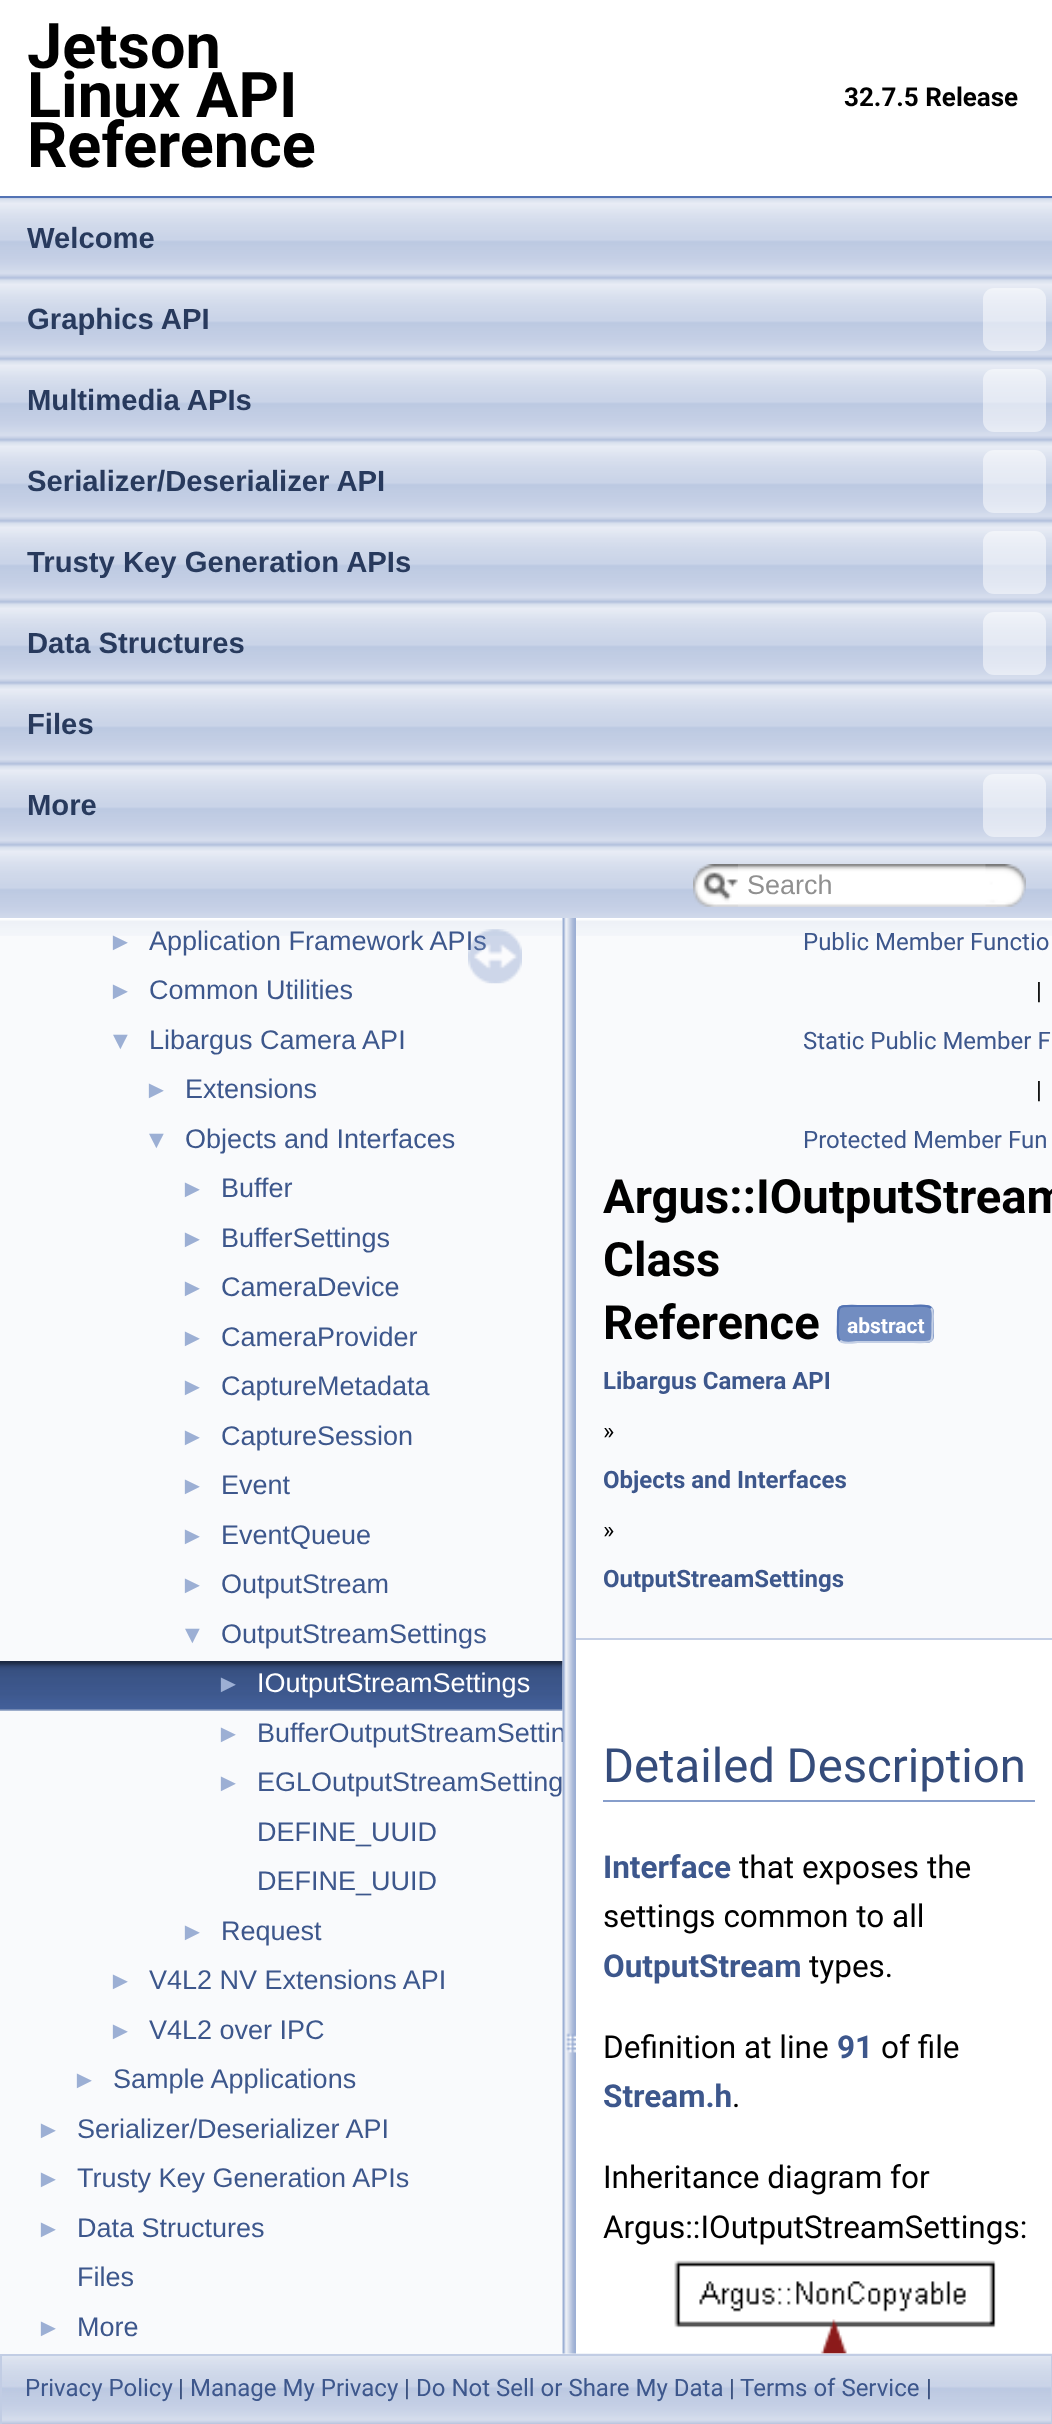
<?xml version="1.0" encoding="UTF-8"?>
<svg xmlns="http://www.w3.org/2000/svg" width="1052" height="2424">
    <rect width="100%" height="100%" fill="#FFFFFF"/>
    <rect x="0" y="196" width="1052" height="2" fill="#5373B4"/>
    <text font-family="Roboto" font-size="63" font-weight="700" fill="#000000">
        <tspan x="27" y="68">Jetson</tspan>
        <tspan x="27" y="117">Linux API</tspan>
        <tspan x="27" y="167">Reference</tspan>
    </text>
    <text x="844" y="106" font-family="Roboto" font-size="26" font-weight="700" fill="#000000">32.7.5 Release</text>
    <image x="0" y="198" width="1052" height="720" href="img_01.png"/>
    <text x="27" y="248" font-family="Liberation Sans" font-size="29.25" font-weight="700" fill="#283A5D">Welcome</text>
    <text x="27" y="329" font-family="Liberation Sans" font-size="29.25" font-weight="700" fill="#283A5D">Graphics API</text>
    <rect x="983" y="288" width="63" height="63" rx="11" fill="#FFFFFF" fill-opacity="0.5"/>
    <text x="27" y="410" font-family="Liberation Sans" font-size="29.25" font-weight="700" fill="#283A5D">Multimedia APIs</text>
    <rect x="983" y="369" width="63" height="63" rx="11" fill="#FFFFFF" fill-opacity="0.5"/>
    <text x="27" y="491" font-family="Liberation Sans" font-size="29.25" font-weight="700" fill="#283A5D">Serializer/Deserializer API</text>
    <rect x="983" y="450" width="63" height="63" rx="11" fill="#FFFFFF" fill-opacity="0.5"/>
    <text x="27" y="572" font-family="Liberation Sans" font-size="29.25" font-weight="700" fill="#283A5D">Trusty Key Generation APIs</text>
    <rect x="983" y="531" width="63" height="63" rx="11" fill="#FFFFFF" fill-opacity="0.5"/>
    <text x="27" y="653" font-family="Liberation Sans" font-size="29.25" font-weight="700" fill="#283A5D">Data Structures</text>
    <rect x="983" y="612" width="63" height="63" rx="11" fill="#FFFFFF" fill-opacity="0.5"/>
    <text x="27" y="734" font-family="Liberation Sans" font-size="29.25" font-weight="700" fill="#283A5D">Files</text>
    <text x="27" y="815" font-family="Liberation Sans" font-size="29.25" font-weight="700" fill="#283A5D">More</text>
    <rect x="983" y="774" width="63" height="63" rx="11" fill="#FFFFFF" fill-opacity="0.5"/>
    <image x="693" y="864" width="45" height="43" href="img_02.png"/>
    <image x="703" y="872" width="35" height="29" href="img_03.png"/>
    <image x="738" y="864" width="259" height="43" href="img_04.png"/>
    <text x="747" y="894" font-family="Liberation Sans" font-size="27" fill="#909090">Search</text>
    <image x="985" y="864" width="41" height="43" href="img_05.png"/>
    <image x="674" y="2260" width="322" height="94" href="img_11.png"/>
    <image x="2" y="2353" width="1050" height="71" href="img_12.png"/>
    <rect x="0" y="918" width="563" height="1436" fill="#F9FAFC"/>
    <image x="0" y="918" width="563" height="18" href="img_06.png"/>
    <text x="149" y="950" font-family="Liberation Sans" font-size="27" fill="#3D578C">Application Framework APIs</text>
    <image x="468" y="929" width="54" height="55" href="img_07.png"/>
    <text font-family="Liberation Sans" font-size="25" fill="#9CAFD4">
        <tspan x="108" y="950">►</tspan>
        <tspan x="108" y="999">►</tspan>
    </text>
    <text x="149" y="999" font-family="Liberation Sans" font-size="27" fill="#3D578C">Common Utilities</text>
    <text x="108" y="1049" font-family="Liberation Sans" font-size="25" fill="#9CAFD4">▼</text>
    <text x="149" y="1049" font-family="Liberation Sans" font-size="27" fill="#3D578C">Libargus Camera API</text>
    <text x="144" y="1098" font-family="Liberation Sans" font-size="25" fill="#9CAFD4">►</text>
    <text x="185" y="1098" font-family="Liberation Sans" font-size="27" fill="#3D578C">Extensions</text>
    <text x="144" y="1148" font-family="Liberation Sans" font-size="25" fill="#9CAFD4">▼</text>
    <text x="185" y="1148" font-family="Liberation Sans" font-size="27" fill="#3D578C">Objects and Interfaces</text>
    <text x="180" y="1197" font-family="Liberation Sans" font-size="25" fill="#9CAFD4">►</text>
    <text x="221" y="1197" font-family="Liberation Sans" font-size="27" fill="#3D578C">Buffer</text>
    <text x="180" y="1247" font-family="Liberation Sans" font-size="25" fill="#9CAFD4">►</text>
    <text x="221" y="1247" font-family="Liberation Sans" font-size="27" fill="#3D578C">BufferSettings</text>
    <text x="180" y="1296" font-family="Liberation Sans" font-size="25" fill="#9CAFD4">►</text>
    <text x="221" y="1296" font-family="Liberation Sans" font-size="27" fill="#3D578C">CameraDevice</text>
    <text x="180" y="1346" font-family="Liberation Sans" font-size="25" fill="#9CAFD4">►</text>
    <text x="221" y="1346" font-family="Liberation Sans" font-size="27" fill="#3D578C">CameraProvider</text>
    <text x="180" y="1395" font-family="Liberation Sans" font-size="25" fill="#9CAFD4">►</text>
    <text x="221" y="1395" font-family="Liberation Sans" font-size="27" fill="#3D578C">CaptureMetadata</text>
    <text x="180" y="1445" font-family="Liberation Sans" font-size="25" fill="#9CAFD4">►</text>
    <text x="221" y="1445" font-family="Liberation Sans" font-size="27" fill="#3D578C">CaptureSession</text>
    <text x="180" y="1494" font-family="Liberation Sans" font-size="25" fill="#9CAFD4">►</text>
    <text x="221" y="1494" font-family="Liberation Sans" font-size="27" fill="#3D578C">Event</text>
    <text x="180" y="1544" font-family="Liberation Sans" font-size="25" fill="#9CAFD4">►</text>
    <text x="221" y="1544" font-family="Liberation Sans" font-size="27" fill="#3D578C">EventQueue</text>
    <text x="180" y="1593" font-family="Liberation Sans" font-size="25" fill="#9CAFD4">►</text>
    <text x="221" y="1593" font-family="Liberation Sans" font-size="27" fill="#3D578C">OutputStream</text>
    <text x="180" y="1643" font-family="Liberation Sans" font-size="25" fill="#9CAFD4">▼</text>
    <text x="221" y="1643" font-family="Liberation Sans" font-size="27" fill="#3D578C">OutputStreamSettings</text>
    <image x="0" y="1661" width="563" height="50" href="img_08.png"/>
    <text x="216" y="1692" font-family="Liberation Sans" font-size="25" fill="#9CAFD4">►</text>
    <text x="257" y="1692" font-family="Liberation Sans" font-size="27" fill="#FFFFFF">IOutputStreamSettings</text>
    <text x="216" y="1742" font-family="Liberation Sans" font-size="25" fill="#9CAFD4">►</text>
    <text x="257" y="1742" font-family="Liberation Sans" font-size="27" fill="#3D578C">BufferOutputStreamSettin</text>
    <text x="216" y="1791" font-family="Liberation Sans" font-size="25" fill="#9CAFD4">►</text>
    <text font-family="Liberation Sans" font-size="27" fill="#3D578C">
        <tspan x="257" y="1791">EGLOutputStreamSetting</tspan>
        <tspan x="257" y="1841">DEFINE_UUID</tspan>
        <tspan x="257" y="1890">DEFINE_UUID</tspan>
    </text>
    <text x="180" y="1940" font-family="Liberation Sans" font-size="25" fill="#9CAFD4">►</text>
    <text x="221" y="1940" font-family="Liberation Sans" font-size="27" fill="#3D578C">Request</text>
    <text x="108" y="1989" font-family="Liberation Sans" font-size="25" fill="#9CAFD4">►</text>
    <text x="149" y="1989" font-family="Liberation Sans" font-size="27" fill="#3D578C">V4L2 NV Extensions API</text>
    <text x="108" y="2039" font-family="Liberation Sans" font-size="25" fill="#9CAFD4">►</text>
    <text x="149" y="2039" font-family="Liberation Sans" font-size="27" fill="#3D578C">V4L2 over IPC</text>
    <text x="72" y="2088" font-family="Liberation Sans" font-size="25" fill="#9CAFD4">►</text>
    <text x="113" y="2088" font-family="Liberation Sans" font-size="27" fill="#3D578C">Sample Applications</text>
    <text x="36" y="2138" font-family="Liberation Sans" font-size="25" fill="#9CAFD4">►</text>
    <text x="77" y="2138" font-family="Liberation Sans" font-size="27" fill="#3D578C">Serializer/Deserializer API</text>
    <text x="36" y="2187" font-family="Liberation Sans" font-size="25" fill="#9CAFD4">►</text>
    <text x="77" y="2187" font-family="Liberation Sans" font-size="27" fill="#3D578C">Trusty Key Generation APIs</text>
    <text x="36" y="2237" font-family="Liberation Sans" font-size="25" fill="#9CAFD4">►</text>
    <text font-family="Liberation Sans" font-size="27" fill="#3D578C">
        <tspan x="77" y="2237">Data Structures</tspan>
        <tspan x="77" y="2286">Files</tspan>
    </text>
    <text x="36" y="2336" font-family="Liberation Sans" font-size="25" fill="#9CAFD4">►</text>
    <text x="77" y="2336" font-family="Liberation Sans" font-size="27" fill="#3D578C">More</text>
    <image x="562" y="918" width="14" height="1436" href="img_09.png"/>
    <rect x="576" y="936" width="476" height="702" fill="#F9FAFC"/>
    <image x="576" y="918" width="476" height="18" href="img_10.png"/>
    <rect x="576" y="1638" width="476" height="2" fill="#C4CFE5"/>
    <text x="803" y="950" font-family="Roboto" font-size="24" fill="#3D578C">Public Member Functio</text>
    <text x="1036" y="999" font-family="Roboto" font-size="24" fill="#000000">|</text>
    <text x="803" y="1049" font-family="Roboto" font-size="24" fill="#3D578C">Static Public Member F</text>
    <text x="1036" y="1098" font-family="Roboto" font-size="24" fill="#000000">|</text>
    <text x="803" y="1148" font-family="Roboto" font-size="24" fill="#3D578C">Protected Member Fun</text>
    <text font-family="Roboto" font-size="47.25" font-weight="700" fill="#000000">
        <tspan x="603" y="1213">Argus::IOutputStream</tspan>
        <tspan x="603" y="1276">Class</tspan>
        <tspan x="603" y="1339">Reference</tspan>
    </text>
    <rect x="837" y="1305" width="97" height="38" rx="7" fill="#728DC1"/>
    <path d="M 931 1308 C 934 1311 932.5 1320.5 932.5 1324 C 932.5 1344.5 934.5 1342 913 1342 H 857.5 C 856.5 1342 843.5 1344.5 840 1340.5" fill="none" stroke="#C4CFE5" stroke-width="2.2"/>
    <path d="M 840 1340.5 C 836.5 1337.5 838 1328 838 1324 C 838 1304 836.5 1306 857.5 1306 H 913 C 914.5 1306 927 1304 931 1308" fill="none" stroke="#5373B4" stroke-width="2.2"/>
    <text x="847" y="1333" font-family="Roboto" font-size="21" font-weight="700" fill="#FFFFFF">abstract</text>
    <text x="603" y="1389" font-family="Roboto" font-size="24" font-weight="700" fill="#3D578C">Libargus Camera API</text>
    <text x="603" y="1439" font-family="Roboto" font-size="24" fill="#000000">»</text>
    <text x="603" y="1488" font-family="Roboto" font-size="24" font-weight="700" fill="#3D578C">Objects and Interfaces</text>
    <text x="603" y="1538" font-family="Roboto" font-size="24" fill="#000000">»</text>
    <text x="603" y="1587" font-family="Roboto" font-size="24" font-weight="700" fill="#3D578C">OutputStreamSettings</text>
    <rect x="603" y="1800" width="432" height="2" fill="#879ECB"/>
    <text x="603" y="1782" font-family="Roboto" font-size="47.25" fill="#354C7B">Detailed Description</text>
    <text x="603" y="1878" font-family="Roboto" font-size="31.5" font-weight="700" fill="#3D578C">Interface</text>
    <text x="739" y="1878" font-family="Roboto" font-size="31.5" fill="#000000">that exposes the</text>
    <text x="603" y="1927" font-family="Roboto" font-size="31.5" fill="#000000">settings common to all</text>
    <text x="603" y="1977" font-family="Roboto" font-size="31.5" font-weight="700" fill="#3D578C">OutputStream</text>
    <text x="809" y="1977" font-family="Roboto" font-size="31.5" fill="#000000">types.</text>
    <text x="603" y="2058" font-family="Roboto" font-size="31.5" fill="#000000">Definition at line</text>
    <text x="837" y="2058" font-family="Roboto" font-size="31.5" font-weight="700" fill="#3D578C">91</text>
    <text x="881" y="2058" font-family="Roboto" font-size="31.5" fill="#000000">of file</text>
    <text x="603" y="2107" font-family="Roboto" font-size="31.5" font-weight="700" fill="#3D578C">Stream.h</text>
    <text x="732" y="2107" font-family="Roboto" font-size="31.5" fill="#000000">.</text>
    <text font-family="Roboto" font-size="31.5" fill="#000000">
        <tspan x="603" y="2188">Inheritance diagram for</tspan>
        <tspan x="603" y="2238">Argus::IOutputStreamSettings:</tspan>
    </text>
    <rect x="1" y="2355" width="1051" height="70" fill="none" stroke="#C2CDE4" stroke-width="2"/>
    <text x="25" y="2396" font-family="Roboto" font-size="24" fill="#3D578C">Privacy Policy</text>
    <text x="178" y="2396" font-family="Roboto" font-size="24" fill="#354C7B">|</text>
    <text x="190" y="2396" font-family="Roboto" font-size="24" fill="#3D578C">Manage My Privacy</text>
    <text x="404" y="2396" font-family="Roboto" font-size="24" fill="#354C7B">|</text>
    <text x="416" y="2396" font-family="Roboto" font-size="24" fill="#3D578C">Do Not Sell or Share My Data</text>
    <text x="729" y="2396" font-family="Roboto" font-size="24" fill="#354C7B">|</text>
    <text x="740" y="2396" font-family="Roboto" font-size="24" fill="#3D578C">Terms of Service</text>
    <text x="926" y="2396" font-family="Roboto" font-size="24" fill="#354C7B">|</text>
</svg>
